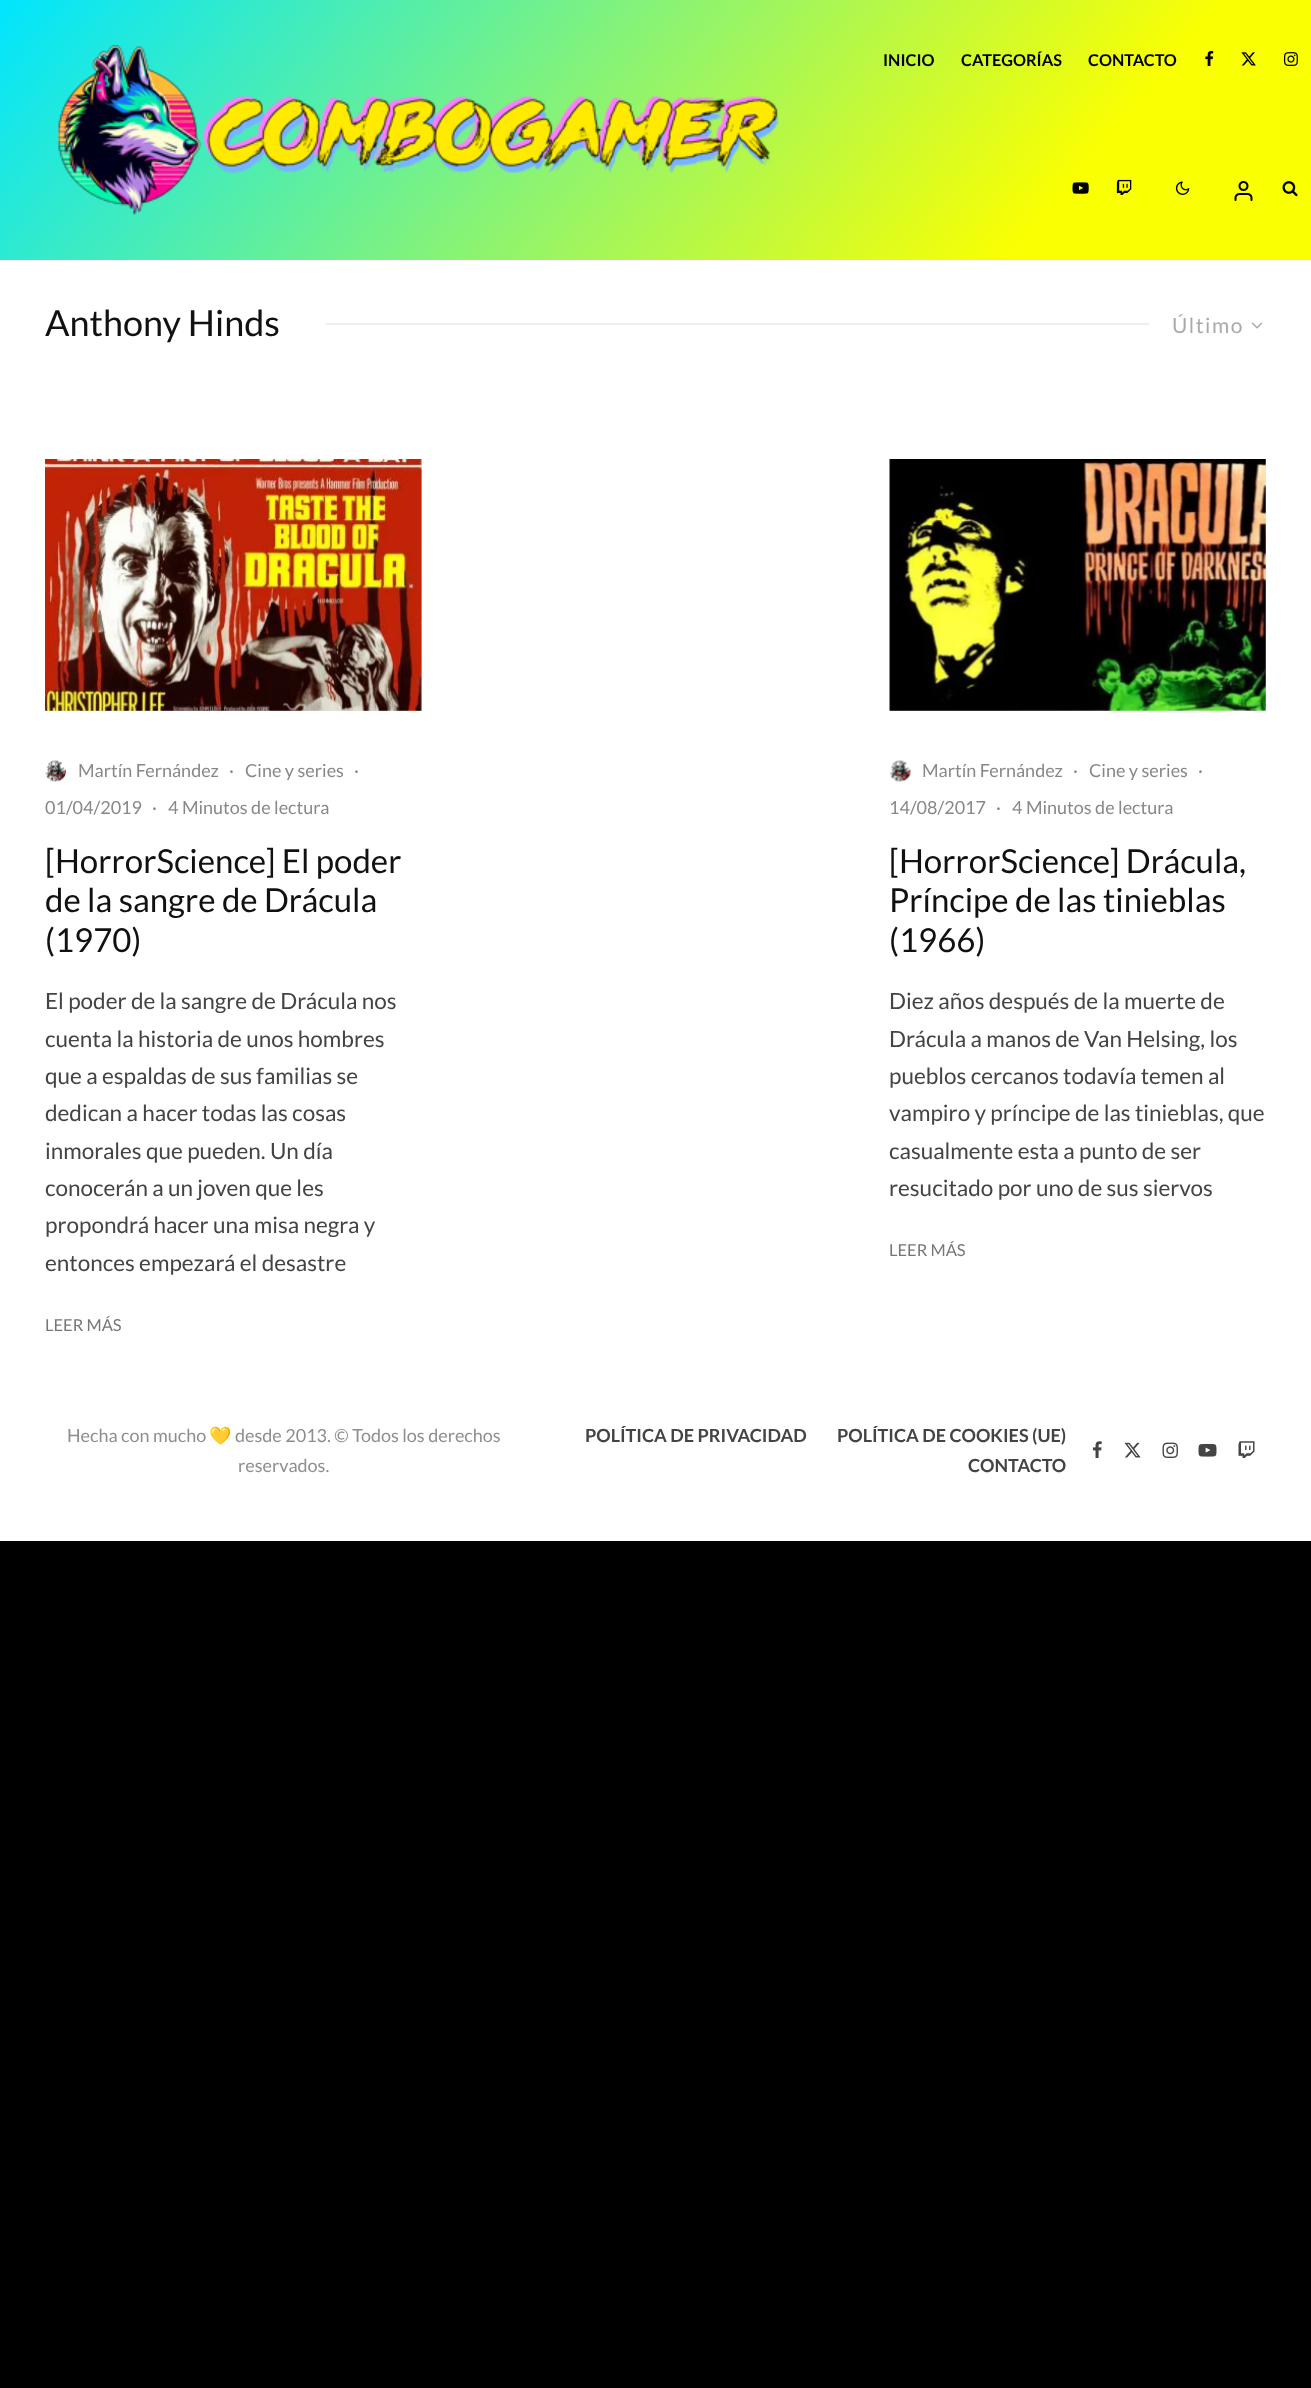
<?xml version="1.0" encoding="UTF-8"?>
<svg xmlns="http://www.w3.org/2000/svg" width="1311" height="2388">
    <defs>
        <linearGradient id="g1" gradientUnits="userSpaceOnUse" x1="207" y1="-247" x2="1104" y2="506"><stop offset="0" stop-color="#00E5FF"/><stop offset="0.8" stop-color="#FAFF02"/></linearGradient>
    </defs>
    <rect width="100%" height="100%" fill="#000000"/>
    <rect x="0" y="0" width="1311" height="260" fill="url(#g1)"/>
    <image x="58" y="45" width="721" height="170" href="img_01.png"/>
    <text x="883" y="66" font-family="Lato" font-size="16.25" font-weight="700" fill="#000000">INICIO</text>
    <text x="961" y="66" font-family="Lato" font-size="16.25" font-weight="700" fill="#000000">CATEGORÍAS</text>
    <text x="1088" y="66" font-family="Lato" font-size="16.25" font-weight="700" fill="#000000">CONTACTO</text>
    <image x="1205" y="50" width="9" height="16" href="img_02.png"/>
    <image x="1241" y="52" width="15" height="14" href="img_03.png"/>
    <image x="1284" y="52" width="14" height="14" href="img_04.png"/>
    <image x="1072" y="182" width="17" height="12" href="img_05.png"/>
    <image x="1116" y="179" width="16" height="16" href="img_06.png"/>
    <image x="1175" y="181" width="15" height="14" href="img_07.png"/>
    <image x="1234" y="181" width="19" height="20" href="img_08.png"/>
    <image x="1282" y="181" width="16" height="16" href="img_09.png"/>
    <rect x="0" y="260" width="1311" height="1281" fill="#FFFFFF"/>
    <text x="45" y="336" font-family="Lato" font-size="36" fill="#111111">Anthony Hinds</text>
    <rect x="326" y="323" width="823" height="2" fill="#EEEEEE"/>
    <text x="1172" y="333" font-family="Lato" font-size="21" letter-spacing="1.5" fill="#AAAAAA">Último</text>
    <image x="1251" y="322" width="12" height="7" href="img_10.png"/>
    <rect x="45" y="459" width="377" height="252" fill="#EEEEEE"/>
    <image x="45" y="459" width="377" height="252" href="img_11.png"/>
    <image x="45" y="760" width="21" height="22" href="img_12.png"/>
    <text x="78" y="777" font-family="Lato" font-size="18" fill="#888888">Martín Fernández</text>
    <text x="229" y="777" font-family="Lato" font-size="18" fill="#888888">·</text>
    <text x="245" y="777" font-family="Lato" font-size="18" fill="#888888">Cine y series</text>
    <text x="354" y="777" font-family="Lato" font-size="18" fill="#888888">·</text>
    <text x="45" y="814" font-family="Lato" font-size="18" fill="#888888">01/04/2019</text>
    <text x="152" y="814" font-family="Lato" font-size="18" fill="#888888">·</text>
    <text x="168" y="814" font-family="Lato" font-size="18" fill="#888888">4 Minutos de lectura</text>
    <text font-family="Lato" font-size="33" fill="#111111">
        <tspan x="45" y="873">[HorrorScience] El poder</tspan>
        <tspan x="45" y="912">de la sangre de Drácula</tspan>
        <tspan x="45" y="952">(1970)</tspan>
    </text>
    <text font-family="Lato" font-size="22.5" fill="#444444">
        <tspan x="45" y="1009">El poder de la sangre de Drácula nos</tspan>
        <tspan x="45" y="1047">cuenta la historia de unos hombres</tspan>
        <tspan x="45" y="1084">que a espaldas de sus familias se</tspan>
        <tspan x="45" y="1121">dedican a hacer todas las cosas</tspan>
        <tspan x="45" y="1159">inmorales que pueden. Un día</tspan>
        <tspan x="45" y="1196">conocerán a un joven que les</tspan>
        <tspan x="45" y="1233">propondrá hacer una misa negra y</tspan>
        <tspan x="45" y="1271">entonces empezará el desastre</tspan>
    </text>
    <text x="45" y="1331" font-family="Lato" font-size="16.5" fill="#767676">LEER MÁS</text>
    <rect x="890" y="459" width="376" height="252" fill="#EEEEEE"/>
    <image x="889" y="459" width="377" height="252" href="img_13.png"/>
    <image x="889" y="760" width="22" height="22" href="img_14.png"/>
    <text x="922" y="777" font-family="Lato" font-size="18" fill="#888888">Martín Fernández</text>
    <text x="1073" y="777" font-family="Lato" font-size="18" fill="#888888">·</text>
    <text x="1089" y="777" font-family="Lato" font-size="18" fill="#888888">Cine y series</text>
    <text x="1198" y="777" font-family="Lato" font-size="18" fill="#888888">·</text>
    <text x="889" y="814" font-family="Lato" font-size="18" fill="#888888">14/08/2017</text>
    <text x="996" y="814" font-family="Lato" font-size="18" fill="#888888">·</text>
    <text x="1012" y="814" font-family="Lato" font-size="18" fill="#888888">4 Minutos de lectura</text>
    <text font-family="Lato" font-size="33" fill="#111111">
        <tspan x="889" y="873">[HorrorScience] Drácula,</tspan>
        <tspan x="889" y="912">Príncipe de las tinieblas</tspan>
        <tspan x="889" y="952">(1966)</tspan>
    </text>
    <text font-family="Lato" font-size="22.5" fill="#444444">
        <tspan x="889" y="1009">Diez años después de la muerte de</tspan>
        <tspan x="889" y="1047">Drácula a manos de Van Helsing, los</tspan>
        <tspan x="889" y="1084">pueblos cercanos todavía temen al</tspan>
        <tspan x="889" y="1121">vampiro y príncipe de las tinieblas, que</tspan>
        <tspan x="889" y="1159">casualmente esta a punto de ser</tspan>
        <tspan x="889" y="1196">resucitado por uno de sus siervos</tspan>
    </text>
    <text x="889" y="1256" font-family="Lato" font-size="16.5" fill="#767676">LEER MÁS</text>
    <text x="67" y="1442" font-family="Lato" font-size="18" fill="#8E8E8E">Hecha con mucho</text>
    <text x="209" y="1442" font-family="Noto Color Emoji" font-size="18" fill="#8E8E8E">💛</text>
    <text x="235" y="1442" font-family="Lato" font-size="18" fill="#8E8E8E">desde 2013. © Todos los derechos</text>
    <text x="238" y="1472" font-family="Lato" font-size="18" fill="#8E8E8E">reservados.</text>
    <text x="585" y="1442" font-family="Lato" font-size="18" font-weight="700" fill="#444444">POLÍTICA DE PRIVACIDAD</text>
    <text x="837" y="1442" font-family="Lato" font-size="18" font-weight="700" fill="#444444">POLÍTICA DE COOKIES (UE)</text>
    <text x="968" y="1472" font-family="Lato" font-size="18" font-weight="700" fill="#444444">CONTACTO</text>
    <image x="1092" y="1441" width="10" height="17" href="img_15.png"/>
    <image x="1124" y="1442" width="17" height="16" href="img_16.png"/>
    <image x="1162" y="1442" width="16" height="16" href="img_17.png"/>
    <image x="1198" y="1443" width="19" height="14" href="img_18.png"/>
    <image x="1238" y="1441" width="17" height="17" href="img_19.png"/>
</svg>
